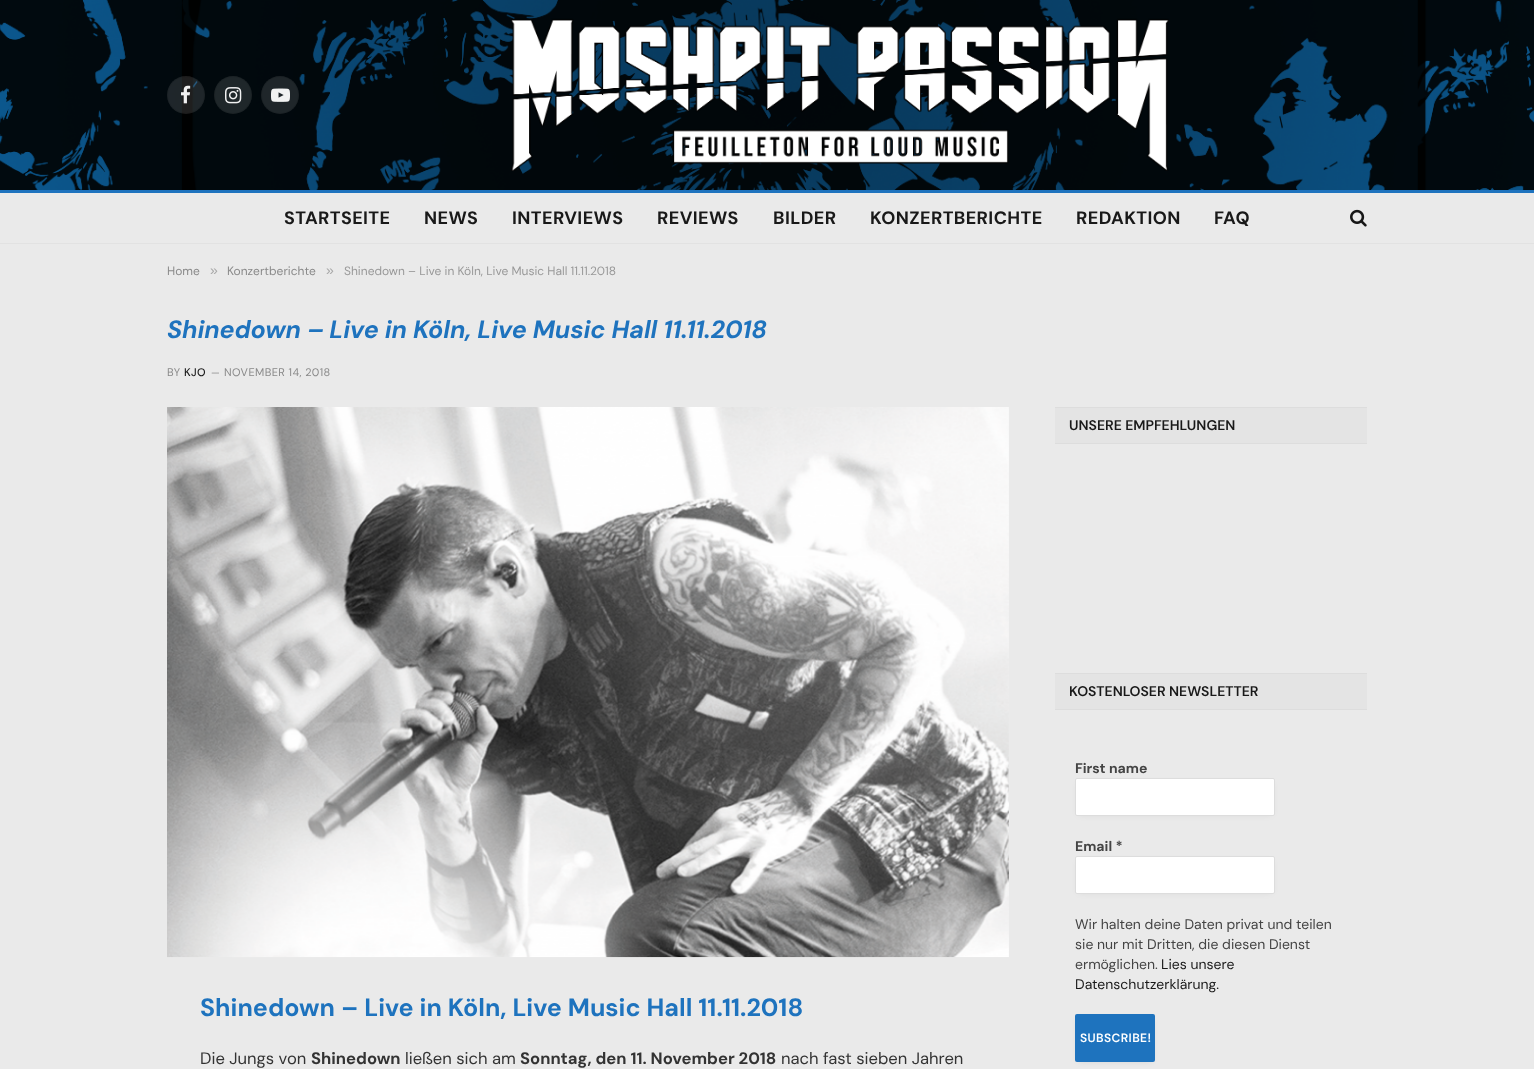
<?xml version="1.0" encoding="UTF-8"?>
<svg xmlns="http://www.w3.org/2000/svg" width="1534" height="1069">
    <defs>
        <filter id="blur1" x="-50%" y="-200%" width="200%" height="500%"><feGaussianBlur stdDeviation="3.5"/></filter>
    </defs>
    <rect width="100%" height="100%" fill="#EAEAEA"/>
    <image x="0" y="0" width="1534" height="190" href="img_01.png"/>
    <circle cx="186" cy="95" r="19" fill="#FFFFFF" fill-opacity="0.12"/>
    <circle cx="186" cy="95" r="18.5" fill="none" stroke="#000000" stroke-opacity="0.09"/>
    <image x="181" y="85" width="10" height="19" href="img_02.png"/>
    <circle cx="233" cy="95" r="19" fill="#1F272A"/>
    <circle cx="233" cy="95" r="18.5" fill="none" stroke="#000000" stroke-opacity="0.09"/>
    <image x="225" y="87" width="17" height="17" href="img_03.png"/>
    <circle cx="280" cy="95" r="19" fill="#1F262A"/>
    <circle cx="280" cy="95" r="18.5" fill="none" stroke="#000000" stroke-opacity="0.09"/>
    <image x="271" y="88" width="19" height="14" href="img_04.png"/>
    <image x="511" y="18" width="658" height="153" href="img_05.png"/>
    <rect x="0" y="190" width="1534" height="3" fill="#1E73BE"/>
    <rect x="0" y="243" width="1534" height="1" fill="#E2E2E2"/>
    <text x="284" y="224" font-family="DM Sans" font-size="18" font-weight="700" letter-spacing="0.4" fill="#191919">STARTSEITE</text>
    <text x="424" y="224" font-family="DM Sans" font-size="18" font-weight="700" letter-spacing="0.4" fill="#191919">NEWS</text>
    <text x="512" y="224" font-family="DM Sans" font-size="18" font-weight="700" letter-spacing="0.4" fill="#191919">INTERVIEWS</text>
    <text x="657" y="224" font-family="DM Sans" font-size="18" font-weight="700" letter-spacing="0.4" fill="#191919">REVIEWS</text>
    <text x="773" y="224" font-family="DM Sans" font-size="18" font-weight="700" letter-spacing="0.4" fill="#191919">BILDER</text>
    <text x="870" y="224" font-family="DM Sans" font-size="18" font-weight="700" letter-spacing="0.4" fill="#191919">KONZERTBERICHTE</text>
    <text x="1076" y="224" font-family="DM Sans" font-size="18" font-weight="700" letter-spacing="0.4" fill="#191919">REDAKTION</text>
    <text x="1214" y="224" font-family="DM Sans" font-size="18" font-weight="700" letter-spacing="0.4" fill="#191919">FAQ</text>
    <image x="1350" y="209" width="17" height="18" href="img_06.png"/>
    <text x="167" y="275" font-family="DM Sans" font-size="12" fill="#8A8A8A">Home</text>
    <text x="210" y="275" font-family="Liberation Sans" font-size="14" fill="#A9A9A9">»</text>
    <text x="227" y="275" font-family="DM Sans" font-size="12" fill="#8A8A8A">Konzertberichte</text>
    <text x="326" y="275" font-family="Liberation Sans" font-size="14" fill="#A9A9A9">»</text>
    <text x="344" y="275" font-family="DM Sans" font-size="12" fill="#999999">Shinedown – Live in Köln, Live Music Hall 11.11.2018</text>
    <text x="167" y="338" font-family="DM Sans" font-size="25" font-weight="700" font-style="italic" letter-spacing="-0.12" fill="#1E73BE">Shinedown – Live in Köln, Live Music Hall 11.11.2018</text>
    <text x="167" y="376" font-family="DM Sans" font-size="11" letter-spacing="0.4" fill="#8A8A8A">BY</text>
    <text x="184" y="376" font-family="DM Sans" font-size="11" font-weight="500" letter-spacing="0.4" fill="#191919">KJO</text>
    <text x="211" y="376" font-family="DM Sans" font-size="10" fill="#8A8A8A">—</text>
    <text x="224" y="376" font-family="DM Sans" font-size="11" letter-spacing="0.4" fill="#8A8A8A">NOVEMBER 14, 2018</text>
    <image x="167" y="407" width="842" height="551" href="img_07.png"/>
    <text x="200" y="1016" font-family="DM Sans" font-size="25" font-weight="700" fill="#1E73BE">Shinedown – Live in Köln, Live Music Hall 11.11.2018</text>
    <text x="200" y="1064" font-family="DM Sans" font-size="16.6" fill="#333333">Die Jungs von</text>
    <text x="311" y="1064" font-family="DM Sans" font-size="16.6" font-weight="700" fill="#333333">Shinedown</text>
    <text x="405" y="1064" font-family="DM Sans" font-size="16.6" fill="#333333">ließen sich am</text>
    <text x="520" y="1064" font-family="DM Sans" font-size="16.6" font-weight="700" fill="#333333">Sonntag, den 11. November 2018</text>
    <text x="781" y="1064" font-family="DM Sans" font-size="16.6" fill="#333333">nach fast sieben Jahren</text>
    <rect x="1055" y="408" width="312" height="35" fill="#E4E4E4"/>
    <rect x="1055" y="407" width="312" height="1" fill="#DDDDDD"/>
    <rect x="1055" y="443" width="312" height="1" fill="#DDDDDD"/>
    <text x="1069" y="430" font-family="DM Sans" font-size="14" font-weight="600" fill="#191919">UNSERE EMPFEHLUNGEN</text>
    <rect x="1055" y="674" width="312" height="35" fill="#E4E4E4"/>
    <rect x="1055" y="673" width="312" height="1" fill="#DDDDDD"/>
    <rect x="1055" y="709" width="312" height="1" fill="#DDDDDD"/>
    <text x="1069" y="696" font-family="DM Sans" font-size="14" font-weight="600" fill="#191919">KOSTENLOSER NEWSLETTER</text>
    <rect x="1079" y="784" width="192" height="30" fill="#000000" fill-opacity="0.1" filter="url(#blur1)"/>
    <text x="1075" y="773" font-family="DM Sans" font-size="14" font-weight="700" fill="#444444">First name</text>
    <rect x="1075.5" y="778.5" width="199" height="37" rx="1.5" fill="#FFFFFF" stroke="#DDDDDD"/>
    <rect x="1079" y="862" width="192" height="30" fill="#000000" fill-opacity="0.1" filter="url(#blur1)"/>
    <text x="1075" y="851" font-family="DM Sans" font-size="14" font-weight="700" fill="#444444">Email *</text>
    <rect x="1075.5" y="856.5" width="199" height="37" rx="1.5" fill="#FFFFFF" stroke="#DDDDDD"/>
    <text font-family="DM Sans" font-size="14" fill="#444444">
        <tspan x="1075" y="929">Wir halten deine Daten privat und teilen</tspan>
        <tspan x="1075" y="949">sie nur mit Dritten, die diesen Dienst</tspan>
        <tspan x="1075" y="969">ermöglichen.</tspan>
    </text>
    <text x="1161" y="969" font-family="DM Sans" font-size="14" fill="#191919">Lies unsere</text>
    <text x="1075" y="989" font-family="DM Sans" font-size="14" fill="#191919">Datenschutzerklärung.</text>
    <rect x="1079" y="1020" width="72" height="40" fill="#000000" fill-opacity="0.16" filter="url(#blur1)"/>
    <rect x="1075" y="1014" width="80" height="48" rx="2" fill="#1E73BE"/>
    <text x="1080" y="1042" font-family="DM Sans" font-size="12" font-weight="600" letter-spacing="0.4" fill="#FFFFFF">SUBSCRIBE!</text>
</svg>
